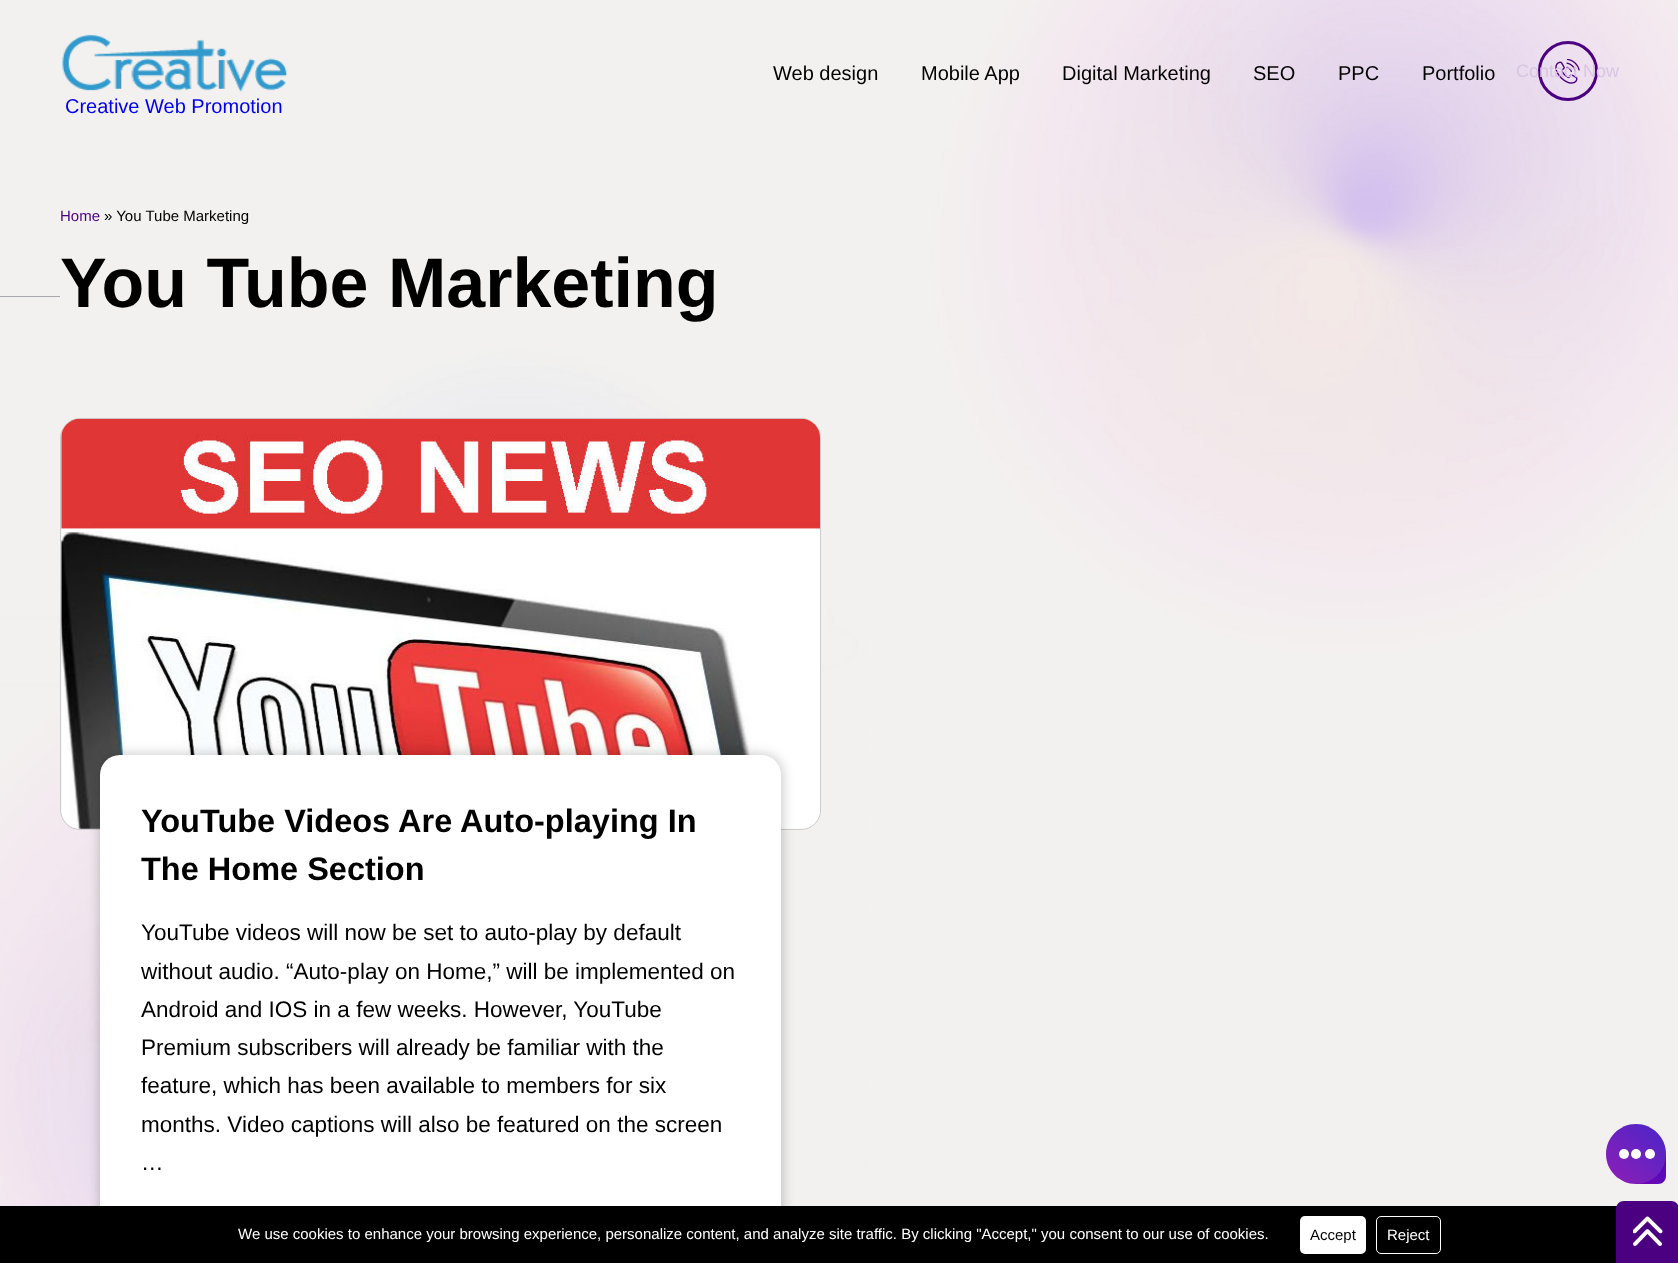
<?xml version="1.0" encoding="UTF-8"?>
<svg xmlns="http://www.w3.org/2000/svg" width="1678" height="1263">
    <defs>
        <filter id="blur1" x="-50%" y="-200%" width="200%" height="500%"><feGaussianBlur stdDeviation="6"/></filter>
        <linearGradient id="g1" gradientUnits="userSpaceOnUse" x1="1608" y1="1186" x2="1664" y2="1122"><stop offset="0" stop-color="#8404AF"/><stop offset="1" stop-color="#350EC3"/></linearGradient>
    </defs>
    <rect width="100%" height="100%" fill="#FFFFFF"/>
    <image x="0" y="0" width="1678" height="1206" href="img_01.png"/>
    <text x="773" y="80" font-family="Liberation Sans" font-size="20" fill="#000000">Web design</text>
    <text x="921" y="80" font-family="Liberation Sans" font-size="20" fill="#000000">Mobile App</text>
    <text x="1062" y="80" font-family="Liberation Sans" font-size="20" fill="#000000">Digital Marketing</text>
    <text x="1253" y="80" font-family="Liberation Sans" font-size="20" fill="#000000">SEO</text>
    <text x="1338" y="80" font-family="Liberation Sans" font-size="20" fill="#000000">PPC</text>
    <text x="1422" y="80" font-family="Liberation Sans" font-size="20" fill="#000000">Portfolio</text>
    <image x="1555" y="59" width="25" height="25" href="img_02.png"/>
    <circle cx="1568" cy="71" r="28.5" fill="none" stroke="#4B0082" stroke-width="3"/>
    <text x="1516" y="77" font-family="Liberation Sans" font-size="18" fill="#DAC5E2">Contact Now</text>
    <image x="62" y="34" width="225" height="58" href="img_03.png"/>
    <text x="65" y="113" font-family="Liberation Sans" font-size="20" fill="#0000EE">Creative Web Promotion</text>
    <text x="60" y="221" font-family="Liberation Sans" font-size="15" fill="#4B0082">Home</text>
    <text x="104" y="221" font-family="Liberation Sans" font-size="15" fill="#000000">» You Tube Marketing</text>
    <rect x="0" y="296" width="60" height="1" fill="#A7A9AC"/>
    <text x="60" y="307" font-family="Liberation Sans" font-size="70" font-weight="700" fill="#000000">You Tube Marketing</text>
    <rect x="60.5" y="418.5" width="760" height="411" rx="19.5" fill="none" stroke="#CCCCCC"/>
    <image x="61" y="418" width="759" height="411" href="img_04.png"/>
    <rect x="99" y="754" width="684" height="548" rx="21" fill="#000000" fill-opacity="0.2" filter="url(#blur1)"/>
    <rect x="100" y="755" width="681" height="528" rx="20" fill="#FFFFFF"/>
    <text font-family="Liberation Sans" font-size="32.5" font-weight="700" fill="#000000">
        <tspan x="141" y="832">YouTube Videos Are Auto-playing In</tspan>
        <tspan x="141" y="880">The Home Section</tspan>
    </text>
    <text font-family="Liberation Sans" font-size="22.5" fill="#000000">
        <tspan x="141" y="940">YouTube videos will now be set to auto-play by default</tspan>
        <tspan x="141" y="979">without audio. “Auto-play on Home,” will be implemented on</tspan>
        <tspan x="141" y="1017">Android and IOS in a few weeks. However, YouTube</tspan>
        <tspan x="141" y="1055">Premium subscribers will already be familiar with the</tspan>
        <tspan x="141" y="1093">feature, which has been available to members for six</tspan>
        <tspan x="141" y="1132">months. Video captions will also be featured on the screen</tspan>
        <tspan x="141" y="1170">…</tspan>
    </text>
    <path d="M 1636 1124 C 1652.5 1124 1666 1137.5 1666 1154 V 1176 C 1666 1180.5 1662.5 1184 1658 1184 H 1636 C 1619.5 1184 1606 1170.5 1606 1154 C 1606 1137.5 1619.5 1124 1636 1124 Z" fill="url(#g1)"/>
    <circle cx="1636" cy="1154" r="30" fill="#FFFFFF" fill-opacity="0.1"/>
    <circle cx="1624" cy="1154" r="5" fill="#FFFFFF"/>
    <circle cx="1636" cy="1154" r="5" fill="#FFFFFF"/>
    <circle cx="1650" cy="1154" r="5" fill="#FFFFFF"/>
    <rect x="0" y="1206" width="1617" height="57" fill="#000000"/>
    <text x="238" y="1239" font-family="Liberation Sans" font-size="15" fill="#FFFFFF">We use cookies to enhance your browsing experience, personalize content, and analyze site traffic. By clicking "Accept," you consent to our use of cookies.</text>
    <rect x="1300" y="1216" width="66" height="38" rx="5" fill="#FFFFFF"/>
    <text x="1310" y="1240" font-family="Liberation Sans" font-size="15" fill="#000000">Accept</text>
    <rect x="1376.5" y="1216.5" width="64" height="37" rx="4.5" fill="none" stroke="#FFFFFF"/>
    <text x="1387" y="1240" font-family="Liberation Sans" font-size="15" fill="#FFFFFF">Reject</text>
    <path d="M 1624 1201 H 1671 C 1675.5 1201 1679 1204.5 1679 1209 V 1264 H 1616 V 1209 C 1616 1204.5 1619.5 1201 1624 1201 Z" fill="#4B0082"/>
    <image x="1633" y="1216" width="30" height="30" href="img_05.png"/>
</svg>
